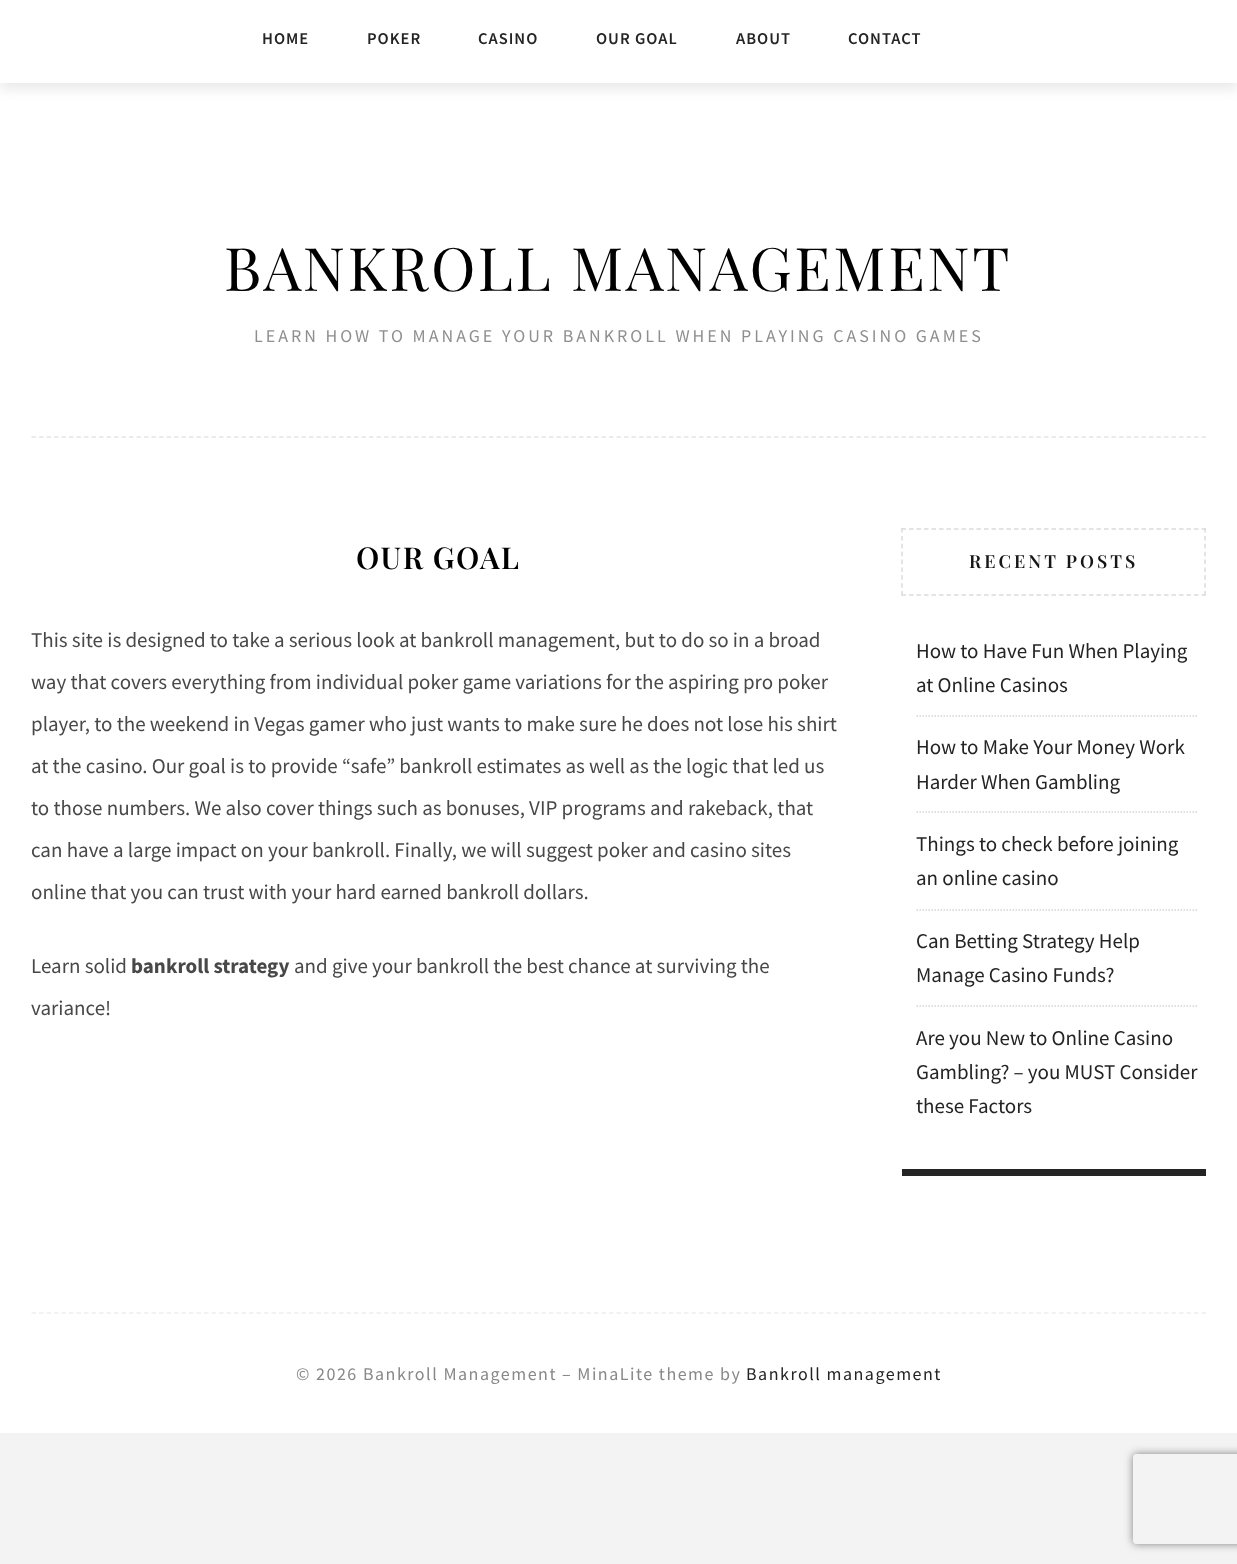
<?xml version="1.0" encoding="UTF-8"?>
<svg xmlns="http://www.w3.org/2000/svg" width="1237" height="1564">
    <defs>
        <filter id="blur1" x="-50%" y="-200%" width="200%" height="500%"><feGaussianBlur stdDeviation="6"/></filter>
        <clipPath id="clip1"><path d="M 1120 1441 H 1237 V 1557 H 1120 Z M 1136 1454 H 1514 C 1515.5 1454 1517 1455.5 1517 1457 V 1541 C 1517 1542.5 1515.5 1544 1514 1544 H 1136 C 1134.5 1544 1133 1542.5 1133 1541 V 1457 C 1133 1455.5 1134.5 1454 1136 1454 Z" clip-rule="evenodd"/></clipPath>
        <filter id="blur2" x="-50%" y="-200%" width="200%" height="500%"><feGaussianBlur stdDeviation="4"/></filter>
    </defs>
    <rect width="100%" height="100%" fill="#F3F3F3"/>
    <rect x="0" y="83" width="1237" height="1350" fill="#FFFFFF"/>
    <rect x="0" y="8" width="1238" height="82" fill="#161616" fill-opacity="0.08" filter="url(#blur1)"/>
    <rect x="0" y="0" width="1237" height="83" fill="#FFFFFF"/>
    <text x="262" y="44" font-family="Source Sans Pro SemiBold" font-size="16.5" font-weight="600" letter-spacing="1" fill="#242424">HOME</text>
    <text x="367" y="44" font-family="Source Sans Pro SemiBold" font-size="16.5" font-weight="600" letter-spacing="1" fill="#242424">POKER</text>
    <text x="478" y="44" font-family="Source Sans Pro SemiBold" font-size="16.5" font-weight="600" letter-spacing="1" fill="#242424">CASINO</text>
    <text x="596" y="44" font-family="Source Sans Pro SemiBold" font-size="16.5" font-weight="600" letter-spacing="1" fill="#242424">OUR GOAL</text>
    <text x="736" y="44" font-family="Source Sans Pro SemiBold" font-size="16.5" font-weight="600" letter-spacing="1" fill="#242424">ABOUT</text>
    <text x="848" y="44" font-family="Source Sans Pro SemiBold" font-size="16.5" font-weight="600" letter-spacing="1" fill="#242424">CONTACT</text>
    <path d="M 31.5 437 H 1206" fill="none" stroke="#E5E5E5" stroke-width="1.5" stroke-dasharray="4.5 3"/>
    <text x="224" y="291" font-family="Playfair Display" font-size="60" letter-spacing="2.6" fill="#000000">BANKROLL MANAGEMENT</text>
    <text x="254" y="342" font-family="Source Sans Pro" font-size="18" letter-spacing="3" fill="#8E8E8E">LEARN HOW TO MANAGE YOUR BANKROLL WHEN PLAYING CASINO GAMES</text>
    <text x="356" y="569" font-family="Playfair Display" font-size="30" font-weight="600" letter-spacing="1.5" fill="#000000">OUR GOAL</text>
    <text x="31" y="647" font-family="Source Sans Pro" font-size="21" fill="#484848">This site is designed to take a serious look at bankroll management, but to do so in a broad</text>
    <text x="31" y="689" font-family="Source Sans Pro" font-size="21" fill="#484848">way that covers everything from individual poker game variations for the aspiring pro poker</text>
    <text x="31" y="731" font-family="Source Sans Pro" font-size="21" fill="#484848">player, to the weekend in Vegas gamer who just wants to make sure he does not lose his shirt</text>
    <text x="31" y="773" font-family="Source Sans Pro" font-size="21" fill="#484848">at the casino. Our goal is to provide “safe” bankroll estimates as well as the logic that led us</text>
    <text x="31" y="815" font-family="Source Sans Pro" font-size="21" fill="#484848">to those numbers. We also cover things such as bonuses, VIP programs and rakeback, that</text>
    <text x="31" y="857" font-family="Source Sans Pro" font-size="21" fill="#484848">can have a large impact on your bankroll. Finally, we will suggest poker and casino sites</text>
    <text x="31" y="899" font-family="Source Sans Pro" font-size="21" fill="#484848">online that you can trust with your hard earned bankroll dollars.</text>
    <text x="31" y="973" font-family="Source Sans Pro" font-size="21" fill="#484848">Learn solid</text>
    <text x="131" y="973" font-family="Source Sans Pro" font-size="21" font-weight="700" fill="#484848">bankroll strategy</text>
    <text x="294" y="973" font-family="Source Sans Pro" font-size="21" fill="#484848">and give your bankroll the best chance at surviving the</text>
    <text x="31" y="1015" font-family="Source Sans Pro" font-size="21" fill="#484848">variance!</text>
    <rect x="902" y="1169" width="304" height="7" fill="#242424"/>
    <path d="M 901.5 529 H 1206" fill="none" stroke="#DBDBDB" stroke-width="1.5" stroke-dasharray="4.5 3"/>
    <path d="M 1205 528 V 595.5" fill="none" stroke="#DBDBDB" stroke-width="1.5" stroke-dasharray="4.5 3.38"/>
    <path d="M 901.5 595 H 1206" fill="none" stroke="#DBDBDB" stroke-width="1.5" stroke-dasharray="4.5 3"/>
    <path d="M 902 528 V 595.5" fill="none" stroke="#DBDBDB" stroke-width="1.5" stroke-dasharray="4.5 3.38"/>
    <text x="969" y="568" font-family="Playfair Display" font-size="18" font-weight="600" letter-spacing="3" fill="#161616">RECENT POSTS</text>
    <path d="M 916.5 716 H 1198.5" fill="none" stroke="#D5D5D5" stroke-width="1.5" stroke-dasharray="1.5 1.5"/>
    <text font-family="Source Sans Pro" font-size="21" fill="#242424">
        <tspan x="916" y="658">How to Have Fun When Playing</tspan>
        <tspan x="916" y="692">at Online Casinos</tspan>
    </text>
    <path d="M 916.5 812 H 1198.5" fill="none" stroke="#D5D5D5" stroke-width="1.5" stroke-dasharray="1.5 1.5"/>
    <text font-family="Source Sans Pro" font-size="21" fill="#242424">
        <tspan x="916" y="754">How to Make Your Money Work</tspan>
        <tspan x="916" y="789">Harder When Gambling</tspan>
    </text>
    <path d="M 916.5 910 H 1198.5" fill="none" stroke="#D5D5D5" stroke-width="1.5" stroke-dasharray="1.5 1.5"/>
    <text font-family="Source Sans Pro" font-size="21" fill="#242424">
        <tspan x="916" y="851">Things to check before joining</tspan>
        <tspan x="916" y="885">an online casino</tspan>
    </text>
    <path d="M 916.5 1006 H 1198.5" fill="none" stroke="#D5D5D5" stroke-width="1.5" stroke-dasharray="1.5 1.5"/>
    <text font-family="Source Sans Pro" font-size="21" fill="#242424">
        <tspan x="916" y="948">Can Betting Strategy Help</tspan>
        <tspan x="916" y="982">Manage Casino Funds?</tspan>
    </text>
    <text font-family="Source Sans Pro" font-size="21" fill="#242424">
        <tspan x="916" y="1045">Are you New to Online Casino</tspan>
        <tspan x="916" y="1079">Gambling? – you MUST Consider</tspan>
        <tspan x="916" y="1113">these Factors</tspan>
    </text>
    <path d="M 31.5 1313 H 1206" fill="none" stroke="#EEEEEE" stroke-width="1.5" stroke-dasharray="4.5 3"/>
    <text x="296" y="1380" font-family="Source Sans Pro" font-size="18" letter-spacing="1.5" fill="#888888">© 2026 Bankroll Management – MinaLite theme by</text>
    <text x="746" y="1380" font-family="Source Sans Pro" font-size="18" letter-spacing="1.5" fill="#242424">Bankroll management</text>
    <g clip-path="url(#clip1)">
        <rect x="1133" y="1454" width="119" height="90" rx="3" fill="#808080" filter="url(#blur2)"/>
    </g>
</svg>
